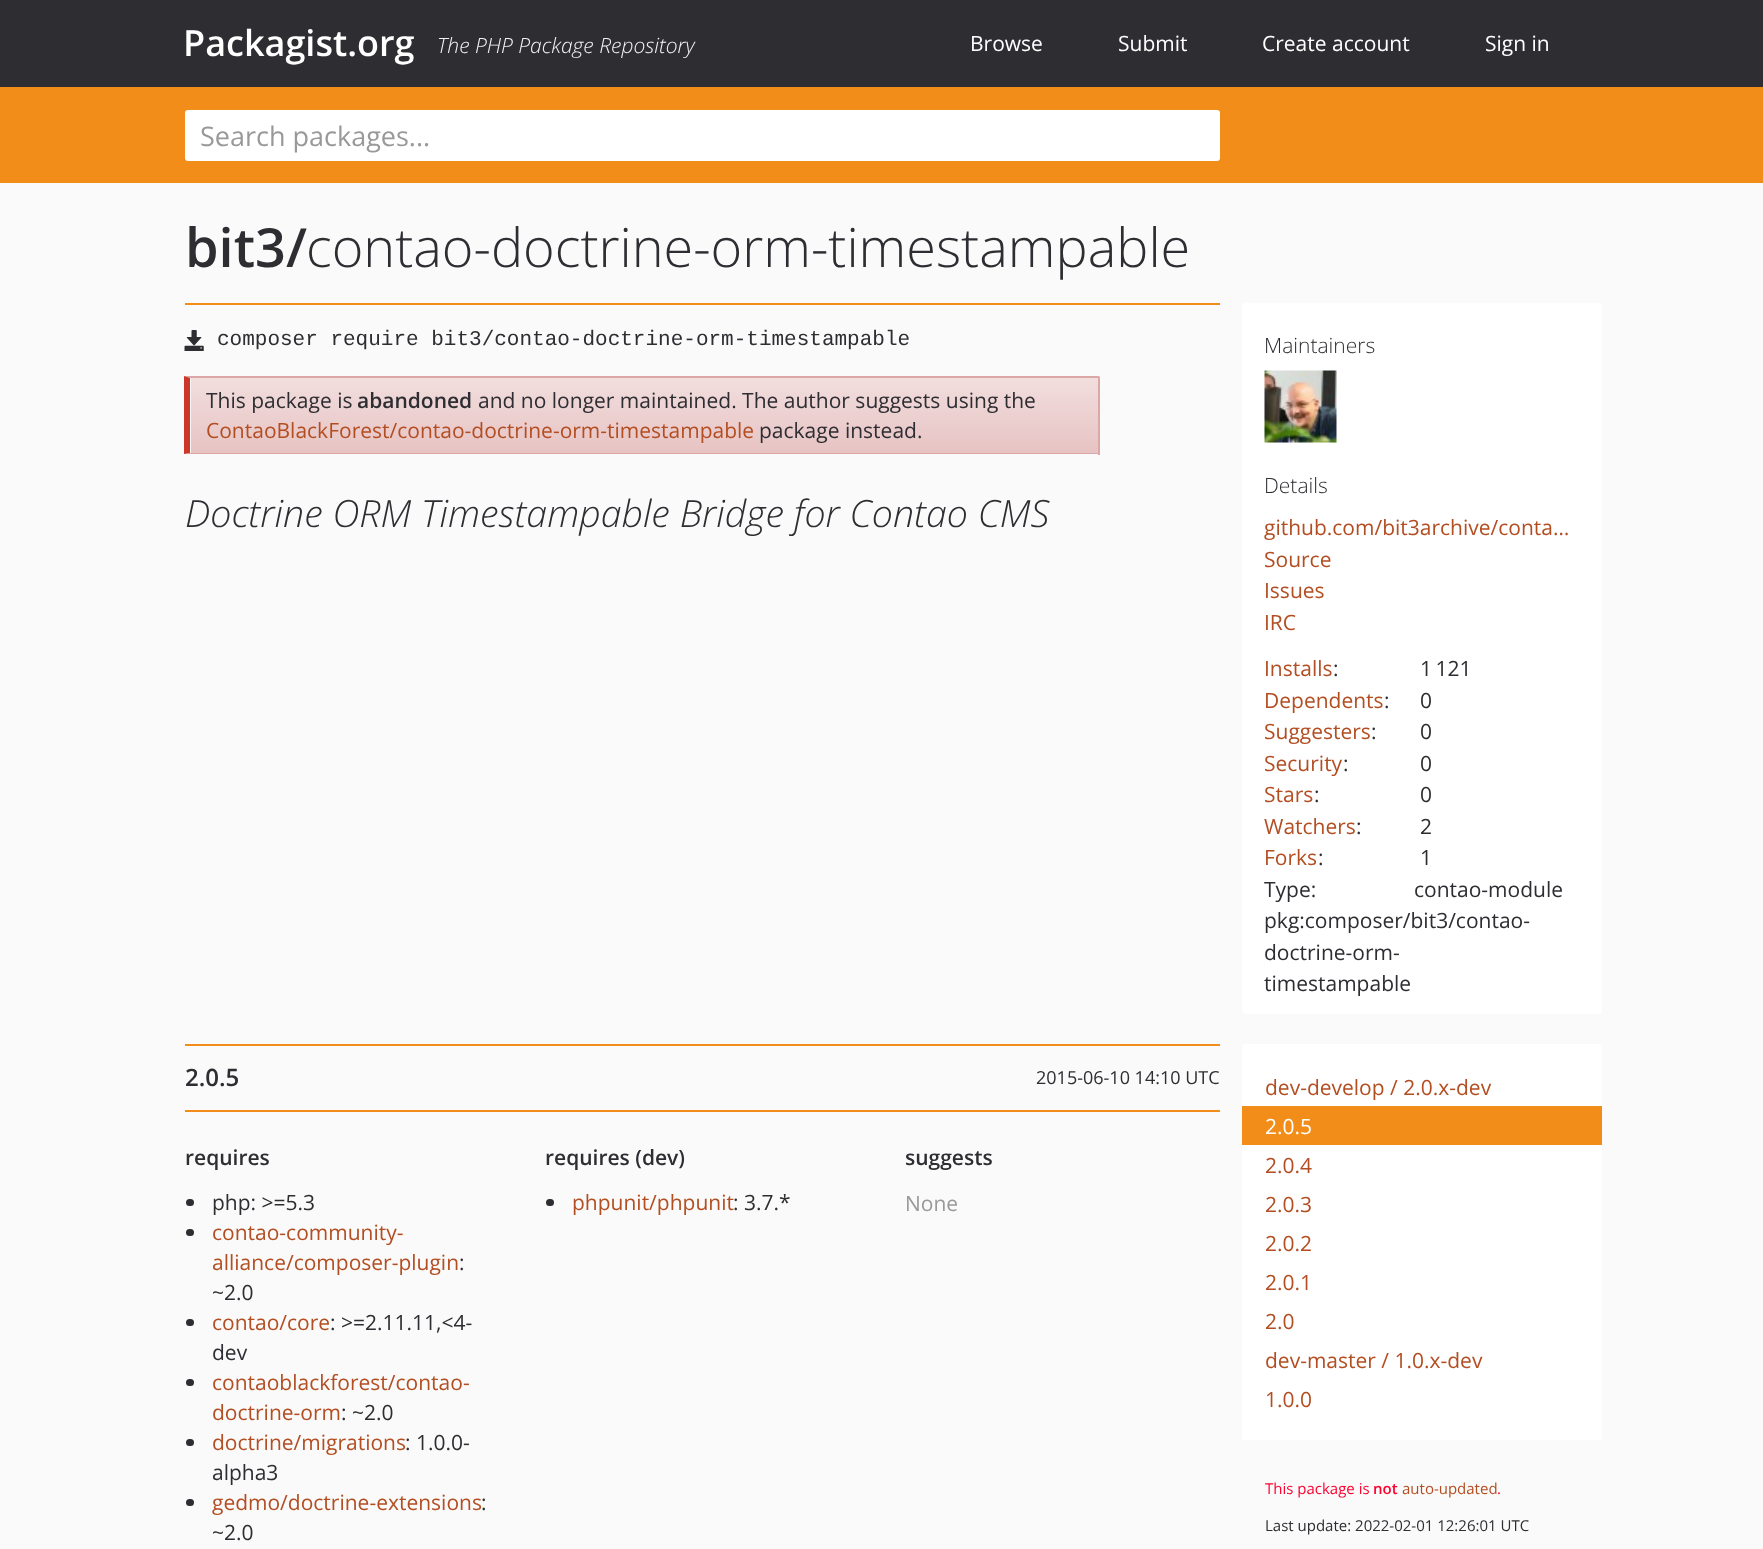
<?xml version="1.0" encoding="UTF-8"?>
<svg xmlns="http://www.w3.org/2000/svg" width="1763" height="1549">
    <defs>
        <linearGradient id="g1" gradientUnits="userSpaceOnUse" x1="644" y1="378" x2="644" y2="453"><stop offset="0" stop-color="#F2DEDE"/><stop offset="1" stop-color="#E7C3C3"/></linearGradient>
    </defs>
    <rect width="100%" height="100%" fill="#FAFAFA"/>
    <rect x="0" y="0" width="1763" height="87" fill="#2D2D32"/>
    <text x="183" y="56" font-family="Open Sans" font-size="36" font-weight="600" fill="#FFFFFF">Packagist.org</text>
    <text x="437" y="53" font-family="Open Sans" font-size="21" font-weight="300" font-style="italic" fill="#F3F4F5">The PHP Package Repository</text>
    <text x="970" y="51" font-family="Open Sans" font-size="21" fill="#FFFFFF">Browse</text>
    <text x="1118" y="51" font-family="Open Sans" font-size="21" fill="#FFFFFF">Submit</text>
    <text x="1262" y="51" font-family="Open Sans" font-size="21" fill="#FFFFFF">Create account</text>
    <text x="1485" y="51" font-family="Open Sans" font-size="21" fill="#FFFFFF">Sign in</text>
    <rect x="0" y="87" width="1763" height="96" fill="#F28D1A"/>
    <rect x="185" y="110" width="1035" height="51" rx="3" fill="#FFFFFF"/>
    <text x="200" y="146" font-family="Open Sans" font-size="27" fill="#999999">Search packages...</text>
    <rect x="185" y="303" width="1035" height="2" fill="#F28D1A"/>
    <text x="185" y="267" font-family="Open Sans" font-size="54" font-weight="600" fill="#2D2D32">bit3/</text>
    <text x="306" y="267" font-family="Open Sans" font-size="54" font-weight="300" fill="#2D2D32">contao-doctrine-orm-timestampable</text>
    <image x="184" y="330" width="20" height="21" href="img_01.png"/>
    <text x="217" y="345" font-family="Liberation Mono" font-size="21" fill="#2D2D32">composer require bit3/contao-doctrine-orm-timestampable</text>
    <rect x="191" y="378" width="907" height="75" fill="url(#g1)"/>
    <path d="M 184 376 H 1100 L 1098 378 H 190 Z" fill="#DCA7A7"/>
    <rect x="1098" y="377" width="2" height="78" fill="#DCA7A7"/>
    <path d="M 1100 454 H 184 L 190 453 H 1098 Z" fill="#DCA7A7"/>
    <path d="M 184 454 V 376 L 190 378 V 453 Z" fill="#CD3729"/>
    <text x="206" y="408" font-family="Open Sans" font-size="21" fill="#2D2D32">This package is</text>
    <text x="357" y="408" font-family="Open Sans" font-size="21" font-weight="600" fill="#2D2D32">abandoned</text>
    <text x="478" y="408" font-family="Open Sans" font-size="21" fill="#2D2D32">and no longer maintained. The author suggests using the</text>
    <text x="206" y="438" font-family="Open Sans" font-size="21" fill="#B34E22">ContaoBlackForest/contao-doctrine-orm-timestampable</text>
    <text x="759" y="438" font-family="Open Sans" font-size="21" fill="#2D2D32">package instead.</text>
    <text x="185" y="527" font-family="Open Sans" font-size="37.5" font-weight="300" font-style="italic" fill="#2D2D32">Doctrine ORM Timestampable Bridge for Contao CMS</text>
    <rect x="1242" y="303" width="360" height="711" rx="3" fill="#FFFFFF"/>
    <text x="1264" y="353" font-family="Open Sans" font-size="21" font-weight="300" fill="#2D2D32">Maintainers</text>
    <image x="1264" y="370" width="73" height="73" href="img_02.png"/>
    <text x="1264" y="493" font-family="Open Sans" font-size="21" font-weight="300" fill="#2D2D32">Details</text>
    <text font-family="Open Sans" font-size="21" fill="#B34E22">
        <tspan x="1264" y="535">github.com/bit3archive/conta…</tspan>
        <tspan x="1264" y="567">Source</tspan>
        <tspan x="1264" y="598">Issues</tspan>
        <tspan x="1264" y="630">IRC</tspan>
    </text>
    <text x="1264" y="676" font-family="Open Sans" font-size="21" fill="#B34E22">Installs</text>
    <text x="1333" y="676" font-family="Open Sans" font-size="21" fill="#2D2D32">:</text>
    <text x="1420" y="676" font-family="Open Sans" font-size="21" fill="#2D2D32">1 121</text>
    <text x="1264" y="708" font-family="Open Sans" font-size="21" fill="#B34E22">Dependents</text>
    <text x="1384" y="708" font-family="Open Sans" font-size="21" fill="#2D2D32">:</text>
    <text x="1420" y="708" font-family="Open Sans" font-size="21" fill="#2D2D32">0</text>
    <text x="1264" y="739" font-family="Open Sans" font-size="21" fill="#B34E22">Suggesters</text>
    <text x="1371" y="739" font-family="Open Sans" font-size="21" fill="#2D2D32">:</text>
    <text x="1420" y="739" font-family="Open Sans" font-size="21" fill="#2D2D32">0</text>
    <text x="1264" y="771" font-family="Open Sans" font-size="21" fill="#B34E22">Security</text>
    <text x="1343" y="771" font-family="Open Sans" font-size="21" fill="#2D2D32">:</text>
    <text x="1420" y="771" font-family="Open Sans" font-size="21" fill="#2D2D32">0</text>
    <text x="1264" y="802" font-family="Open Sans" font-size="21" fill="#B34E22">Stars</text>
    <text x="1314" y="802" font-family="Open Sans" font-size="21" fill="#2D2D32">:</text>
    <text x="1420" y="802" font-family="Open Sans" font-size="21" fill="#2D2D32">0</text>
    <text x="1264" y="834" font-family="Open Sans" font-size="21" fill="#B34E22">Watchers</text>
    <text x="1356" y="834" font-family="Open Sans" font-size="21" fill="#2D2D32">:</text>
    <text x="1420" y="834" font-family="Open Sans" font-size="21" fill="#2D2D32">2</text>
    <text x="1264" y="865" font-family="Open Sans" font-size="21" fill="#B34E22">Forks</text>
    <text x="1318" y="865" font-family="Open Sans" font-size="21" fill="#2D2D32">:</text>
    <text x="1420" y="865" font-family="Open Sans" font-size="21" fill="#2D2D32">1</text>
    <text x="1264" y="897" font-family="Open Sans" font-size="21" fill="#2D2D32">Type:</text>
    <text x="1414" y="897" font-family="Open Sans" font-size="21" fill="#2D2D32">contao-module</text>
    <text font-family="Open Sans" font-size="21" fill="#2D2D32">
        <tspan x="1264" y="928">pkg:composer/bit3/contao-</tspan>
        <tspan x="1264" y="960">doctrine-orm-</tspan>
        <tspan x="1264" y="991">timestampable</tspan>
    </text>
    <rect x="185" y="1044" width="1035" height="2" fill="#F28D1A"/>
    <text x="185" y="1086" font-family="Open Sans" font-size="24" font-weight="600" fill="#2D2D32">2.0.5</text>
    <text x="1036" y="1084" font-family="Open Sans" font-size="18" fill="#2D2D32">2015-06-10 14:10 UTC</text>
    <rect x="185" y="1110" width="1035" height="2" fill="#F28D1A"/>
    <text x="185" y="1165" font-family="Open Sans" font-size="21" font-weight="600" fill="#2D2D32">requires</text>
    <rect x="186" y="1199" width="8" height="7" rx="3.5" fill="#2D2D32"/>
    <text x="212" y="1210" font-family="Open Sans" font-size="21" fill="#2D2D32">php: &gt;=5.3</text>
    <rect x="186" y="1229" width="8" height="7" rx="3.5" fill="#2D2D32"/>
    <text font-family="Open Sans" font-size="21" fill="#B34E22">
        <tspan x="212" y="1240">contao-community-</tspan>
        <tspan x="212" y="1270">alliance/composer-plugin</tspan>
    </text>
    <text x="459" y="1270" font-family="Open Sans" font-size="21" fill="#2D2D32">:</text>
    <text x="212" y="1300" font-family="Open Sans" font-size="21" fill="#2D2D32">~2.0</text>
    <rect x="186" y="1319" width="8" height="7" rx="3.5" fill="#2D2D32"/>
    <text x="212" y="1330" font-family="Open Sans" font-size="21" fill="#B34E22">contao/core</text>
    <text x="330" y="1330" font-family="Open Sans" font-size="21" fill="#2D2D32">: &gt;=2.11.11,&lt;4-</text>
    <text x="212" y="1360" font-family="Open Sans" font-size="21" fill="#2D2D32">dev</text>
    <rect x="186" y="1379" width="8" height="7" rx="3.5" fill="#2D2D32"/>
    <text font-family="Open Sans" font-size="21" fill="#B34E22">
        <tspan x="212" y="1390">contaoblackforest/contao-</tspan>
        <tspan x="212" y="1420">doctrine-orm</tspan>
    </text>
    <text x="341" y="1420" font-family="Open Sans" font-size="21" fill="#2D2D32">: ~2.0</text>
    <rect x="186" y="1439" width="8" height="7" rx="3.5" fill="#2D2D32"/>
    <text x="212" y="1450" font-family="Open Sans" font-size="21" fill="#B34E22">doctrine/migrations</text>
    <text x="405" y="1450" font-family="Open Sans" font-size="21" fill="#2D2D32">: 1.0.0-</text>
    <text x="212" y="1480" font-family="Open Sans" font-size="21" fill="#2D2D32">alpha3</text>
    <rect x="186" y="1499" width="8" height="7" rx="3.5" fill="#2D2D32"/>
    <text x="212" y="1510" font-family="Open Sans" font-size="21" fill="#B34E22">gedmo/doctrine-extensions</text>
    <text x="481" y="1510" font-family="Open Sans" font-size="21" fill="#2D2D32">:</text>
    <text x="212" y="1540" font-family="Open Sans" font-size="21" fill="#2D2D32">~2.0</text>
    <text x="545" y="1165" font-family="Open Sans" font-size="21" font-weight="600" fill="#2D2D32">requires (dev)</text>
    <rect x="546" y="1199" width="8" height="7" rx="3.5" fill="#2D2D32"/>
    <text x="572" y="1210" font-family="Open Sans" font-size="21" fill="#B34E22">phpunit/phpunit</text>
    <text x="733" y="1210" font-family="Open Sans" font-size="21" fill="#2D2D32">: 3.7.*</text>
    <text x="905" y="1165" font-family="Open Sans" font-size="21" font-weight="600" fill="#2D2D32">suggests</text>
    <text x="905" y="1211" font-family="Open Sans" font-size="21" fill="#999999">None</text>
    <rect x="1242" y="1044" width="360" height="396" rx="3" fill="#FFFFFF"/>
    <text x="1265" y="1095" font-family="Open Sans" font-size="21" fill="#B34E22">dev-develop / 2.0.x-dev</text>
    <rect x="1242" y="1106" width="360" height="39" fill="#F28D1A"/>
    <text x="1265" y="1134" font-family="Open Sans" font-size="21" fill="#FFFFFF">2.0.5</text>
    <text font-family="Open Sans" font-size="21" fill="#B34E22">
        <tspan x="1265" y="1173">2.0.4</tspan>
        <tspan x="1265" y="1212">2.0.3</tspan>
        <tspan x="1265" y="1251">2.0.2</tspan>
        <tspan x="1265" y="1290">2.0.1</tspan>
        <tspan x="1265" y="1329">2.0</tspan>
        <tspan x="1265" y="1368">dev-master / 1.0.x-dev</tspan>
        <tspan x="1265" y="1407">1.0.0</tspan>
    </text>
    <text x="1265" y="1494" font-family="Open Sans" font-size="15" fill="#FF002F">This package is</text>
    <text x="1373" y="1494" font-family="Open Sans" font-size="15" font-weight="600" fill="#FF002F">not</text>
    <text x="1402" y="1494" font-family="Open Sans" font-size="15" fill="#B34E22">auto-updated</text>
    <text x="1497" y="1494" font-family="Open Sans" font-size="15" fill="#FF002F">.</text>
    <text x="1265" y="1531" font-family="Open Sans" font-size="15" fill="#2D2D32">Last update: 2022-02-01 12:26:01 UTC</text>
</svg>
